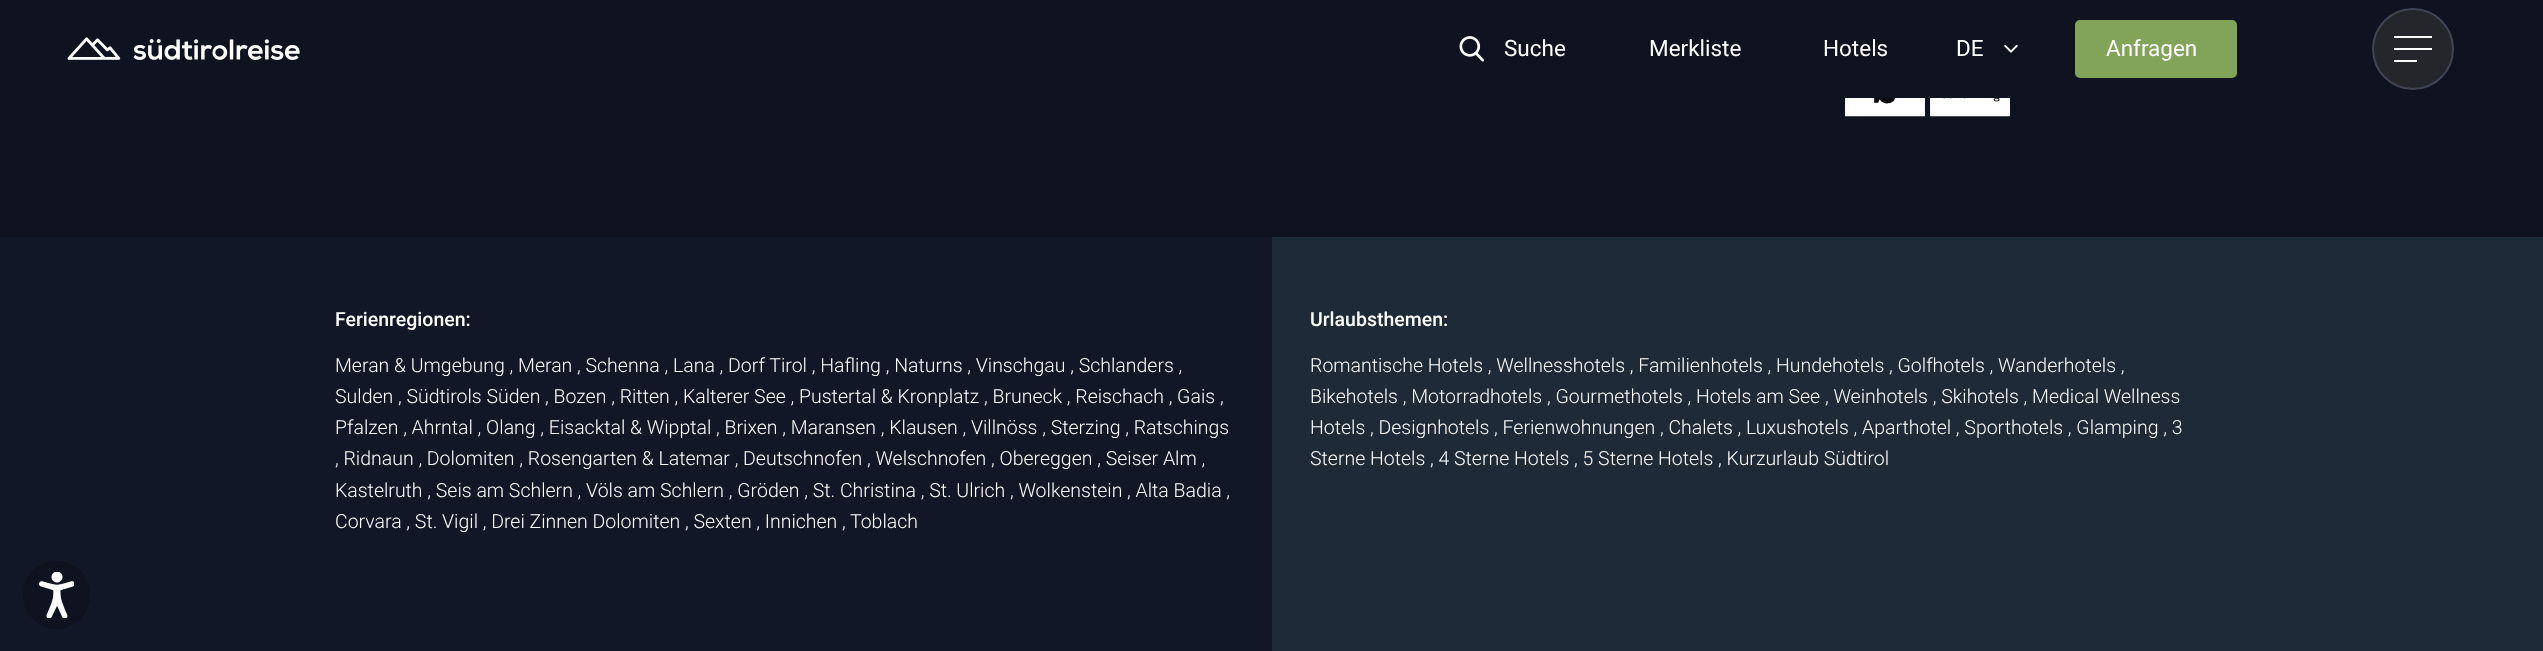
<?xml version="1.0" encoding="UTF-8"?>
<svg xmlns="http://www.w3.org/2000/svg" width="2543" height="651">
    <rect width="100%" height="100%" fill="#0F121F"/>
    <image x="67" y="37" width="233" height="23" href="img_01.png"/>
    <image x="1459" y="36" width="26" height="26" href="img_02.png"/>
    <text x="1504" y="56" font-family="Roboto" font-size="22.5" fill="#FFFFFF">Suche</text>
    <text x="1649" y="56" font-family="Roboto" font-size="22.5" fill="#FFFFFF">Merkliste</text>
    <text x="1823" y="56" font-family="Roboto" font-size="22.5" fill="#FFFFFF">Hotels</text>
    <text x="1956" y="56" font-family="Roboto" font-size="22.5" fill="#FFFFFF">DE</text>
    <image x="2004" y="44" width="14" height="9" href="img_03.png"/>
    <rect x="2076" y="21" width="160" height="56" rx="4" fill="#81A459" stroke="#81A459" stroke-width="2"/>
    <text x="2106" y="56" font-family="Roboto" font-size="22.5" fill="#FFFFFF">Anfragen</text>
    <circle cx="2413" cy="49" r="40" fill="#25262C" stroke="#414452" stroke-width="2"/>
    <rect x="2394" y="36" width="38" height="2" fill="#FFFFFF"/>
    <rect x="2394" y="48" width="38" height="2" fill="#FFFFFF"/>
    <rect x="2394" y="60" width="23" height="2" fill="#FFFFFF"/>
    <image x="1845" y="98" width="165" height="19" href="img_04.png"/>
    <rect x="0" y="237" width="1272" height="414" fill="#121728"/>
    <rect x="1272" y="237" width="1271" height="414" fill="#1E2A38"/>
    <text x="335" y="326" font-family="Roboto" font-size="19.5" font-weight="500" fill="#FFFFFF">Ferienregionen:</text>
    <text font-family="Roboto" font-size="19.5" font-weight="300" fill="#FFFFFF">
        <tspan x="335" y="372">Meran &amp; Umgebung , Meran , Schenna , Lana , Dorf Tirol , Hafling , Naturns , Vinschgau , Schlanders ,</tspan>
        <tspan x="335" y="403">Sulden , Südtirols Süden , Bozen , Ritten , Kalterer See , Pustertal &amp; Kronplatz , Bruneck , Reischach , Gais ,</tspan>
        <tspan x="335" y="434">Pfalzen , Ahrntal , Olang , Eisacktal &amp; Wipptal , Brixen , Maransen , Klausen , Villnöss , Sterzing , Ratschings</tspan>
        <tspan x="335" y="465">, Ridnaun , Dolomiten , Rosengarten &amp; Latemar , Deutschnofen , Welschnofen , Obereggen , Seiser Alm ,</tspan>
        <tspan x="335" y="497">Kastelruth , Seis am Schlern , Völs am Schlern , Gröden , St. Christina , St. Ulrich , Wolkenstein , Alta Badia ,</tspan>
        <tspan x="335" y="528">Corvara , St. Vigil , Drei Zinnen Dolomiten , Sexten , Innichen ,</tspan>
    </text>
    <text x="850" y="528" font-family="Roboto" font-size="19.5" font-weight="300" fill="#FFFFFF">Toblach</text>
    <text x="1310" y="326" font-family="Roboto" font-size="19.5" font-weight="500" fill="#FFFFFF">Urlaubsthemen:</text>
    <text font-family="Roboto" font-size="19.5" font-weight="300" fill="#FFFFFF">
        <tspan x="1310" y="372">Romantische Hotels , Wellnesshotels , Familienhotels , Hundehotels , Golfhotels , Wanderhotels ,</tspan>
        <tspan x="1310" y="403">Bikehotels , Motorradhotels , Gourmethotels , Hotels am See , Weinhotels , Skihotels , Medical Wellness</tspan>
        <tspan x="1310" y="434">Hotels , Designhotels , Ferienwohnungen , Chalets , Luxushotels , Aparthotel , Sporthotels , Glamping , 3</tspan>
        <tspan x="1310" y="465">Sterne Hotels , 4 Sterne Hotels , 5 Sterne Hotels , Kurzurlaub Südtirol</tspan>
    </text>
    <rect x="23" y="561" width="67" height="68" rx="33.5" fill="#0F121F"/>
    <image x="39" y="572" width="35" height="46" href="img_05.png"/>
</svg>
